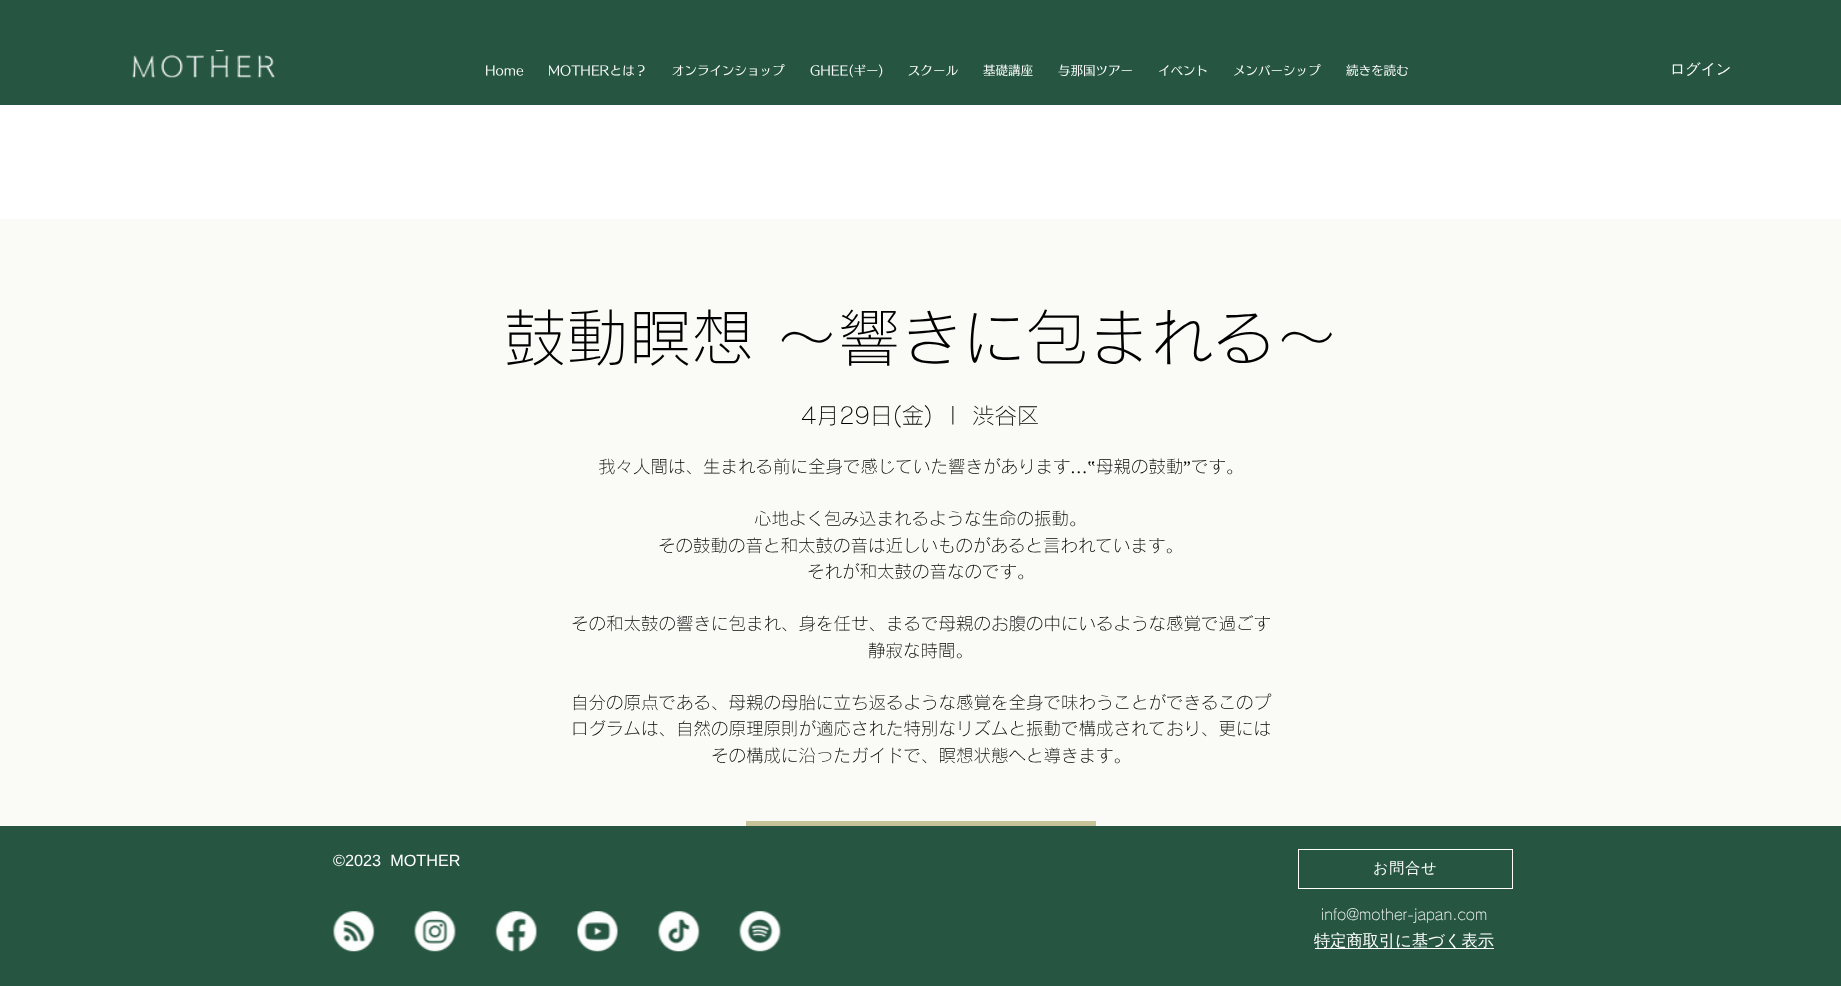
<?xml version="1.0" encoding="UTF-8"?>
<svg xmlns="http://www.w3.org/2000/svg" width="1841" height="986">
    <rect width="100%" height="100%" fill="#FFFFFF"/>
    <rect x="0" y="0" width="1841" height="105" fill="#265642"/>
    <image x="132" y="50" width="143" height="28" href="img_01.png"/>
    <text x="485" y="75" font-family="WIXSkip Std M" font-size="12.5" font-weight="500" fill="#FFFFFF">Home</text>
    <text x="548" y="75" font-family="WIXSkip Std M" font-size="12.5" font-weight="500" fill="#FFFFFF">MOTHERとは？</text>
    <text x="672" y="75" font-family="WIXSkip Std M" font-size="12.5" font-weight="500" fill="#FFFFFF">オンラインショップ</text>
    <text x="810" y="75" font-family="WIXSkip Std M" font-size="12.5" font-weight="500" fill="#FFFFFF">GHEE(ギー)</text>
    <text x="908" y="75" font-family="WIXSkip Std M" font-size="12.5" font-weight="500" fill="#FFFFFF">スクール</text>
    <text x="983" y="75" font-family="WIXSkip Std M" font-size="12.5" font-weight="500" fill="#FFFFFF">基礎講座</text>
    <text x="1058" y="75" font-family="WIXSkip Std M" font-size="12.5" font-weight="500" fill="#FFFFFF">与那国ツアー</text>
    <text x="1158" y="75" font-family="WIXSkip Std M" font-size="12.5" font-weight="500" fill="#FFFFFF">イベント</text>
    <text x="1233" y="75" font-family="WIXSkip Std M" font-size="12.5" font-weight="500" fill="#FFFFFF">メンバーシップ</text>
    <text x="1346" y="75" font-family="WIXSkip Std M" font-size="12.5" font-weight="500" fill="#FFFFFF">続きを読む</text>
    <text x="1670" y="74" font-family="WenQuanYi Zen Hei" font-size="15" font-weight="500" fill="#FFFFFF">ログイン</text>
    <rect x="0" y="219" width="1841" height="607" fill="#FAFAF6"/>
    <text x="504" y="361" font-family="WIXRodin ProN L" font-size="62.5" font-weight="300" fill="#000000">鼓動瞑想 ～響きに包まれる～</text>
    <text x="801" y="424" font-family="WIXRodin ProN L" font-size="22.5" font-weight="300" fill="#000000">4月29日(金)</text>
    <text x="949" y="424" font-family="WIXRodin ProN L" font-size="22.5" font-weight="300" fill="#000000">|</text>
    <text x="972" y="424" font-family="WIXRodin ProN L" font-size="22.5" font-weight="300" fill="#000000">渋谷区</text>
    <text x="598" y="473" font-family="WIXRodin ProN L" font-size="17.5" font-weight="300" fill="#000000">我々人間は、生まれる前に全身で感じていた響きがあります</text>
    <text x="1070" y="473" font-family="Liberation Serif" font-size="17.5" fill="#000000">…‟</text>
    <text x="1096" y="473" font-family="WIXRodin ProN L" font-size="17.5" font-weight="300" fill="#000000">母親の鼓動</text>
    <text x="1183" y="473" font-family="Liberation Serif" font-size="17.5" fill="#000000">”</text>
    <text x="1191" y="473" font-family="WIXRodin ProN L" font-size="17.5" font-weight="300" fill="#000000">です。</text>
    <text x="754" y="525" font-family="WIXRodin ProN L" font-size="17.5" font-weight="300" fill="#000000">心地よく包み込まれるような生命の振動。</text>
    <text x="658" y="552" font-family="WIXRodin ProN L" font-size="17.5" font-weight="300" fill="#000000">その鼓動の音と和太鼓の音は近しいものがあると言われています。</text>
    <text x="807" y="578" font-family="WIXRodin ProN L" font-size="17.5" font-weight="300" fill="#000000">それが和太鼓の音なのです。</text>
    <text x="571" y="630" font-family="WIXRodin ProN L" font-size="17.5" font-weight="300" fill="#000000">その和太鼓の響きに包まれ、身を任せ、まるで母親のお腹の中にいるような感覚で過ごす</text>
    <text x="868" y="657" font-family="WIXRodin ProN L" font-size="17.5" font-weight="300" fill="#000000">静寂な時間。</text>
    <text font-family="WIXRodin ProN L" font-size="17.5" font-weight="300" fill="#000000">
        <tspan x="571" y="709">自分の原点である、母親の母胎に立ち返るような感覚を全身で味わうことができるこのプ</tspan>
        <tspan x="571" y="735">ログラムは、自然の原理原則が適応された特別なリズムと振動で構成されており、更には</tspan>
    </text>
    <text x="711" y="762" font-family="WIXRodin ProN L" font-size="17.5" font-weight="300" fill="#000000">その構成に沿ったガイドで、瞑想状態へと導きます。</text>
    <rect x="746" y="821" width="350" height="5" fill="#C6C398"/>
    <rect x="0" y="826" width="1841" height="160" fill="#265642"/>
    <text x="333" y="866" font-family="Liberation Sans" font-size="16.25" fill="#FFFFFF" xml:space="preserve">©︎2023  MOTHER</text>
    <rect x="1298.5" y="849.5" width="214" height="39" fill="none" stroke="#FFFFFF"/>
    <text x="1373" y="873" font-family="WenQuanYi Zen Hei" font-size="15" font-weight="500" letter-spacing="1" fill="#FFFFFF">お問合せ</text>
    <image x="333" y="911" width="42" height="41" href="img_02.png"/>
    <image x="414" y="911" width="42" height="41" href="img_03.png"/>
    <image x="495" y="911" width="42" height="41" href="img_04.png"/>
    <image x="577" y="911" width="41" height="41" href="img_05.png"/>
    <image x="658" y="911" width="42" height="41" href="img_06.png"/>
    <image x="739" y="911" width="42" height="41" href="img_07.png"/>
    <text x="1321" y="920" font-family="WIXRodin ProN L" font-size="15" font-weight="300" fill="#FFFFFF">info@mother-japan.com</text>
    <rect x="1315" y="948" width="179" height="1" fill="#FFFFFF"/>
    <text x="1314" y="946" font-family="WenQuanYi Zen Hei" font-size="16.25" font-weight="500" fill="#FFFFFF">特定商取引に基づく表示</text>
</svg>
